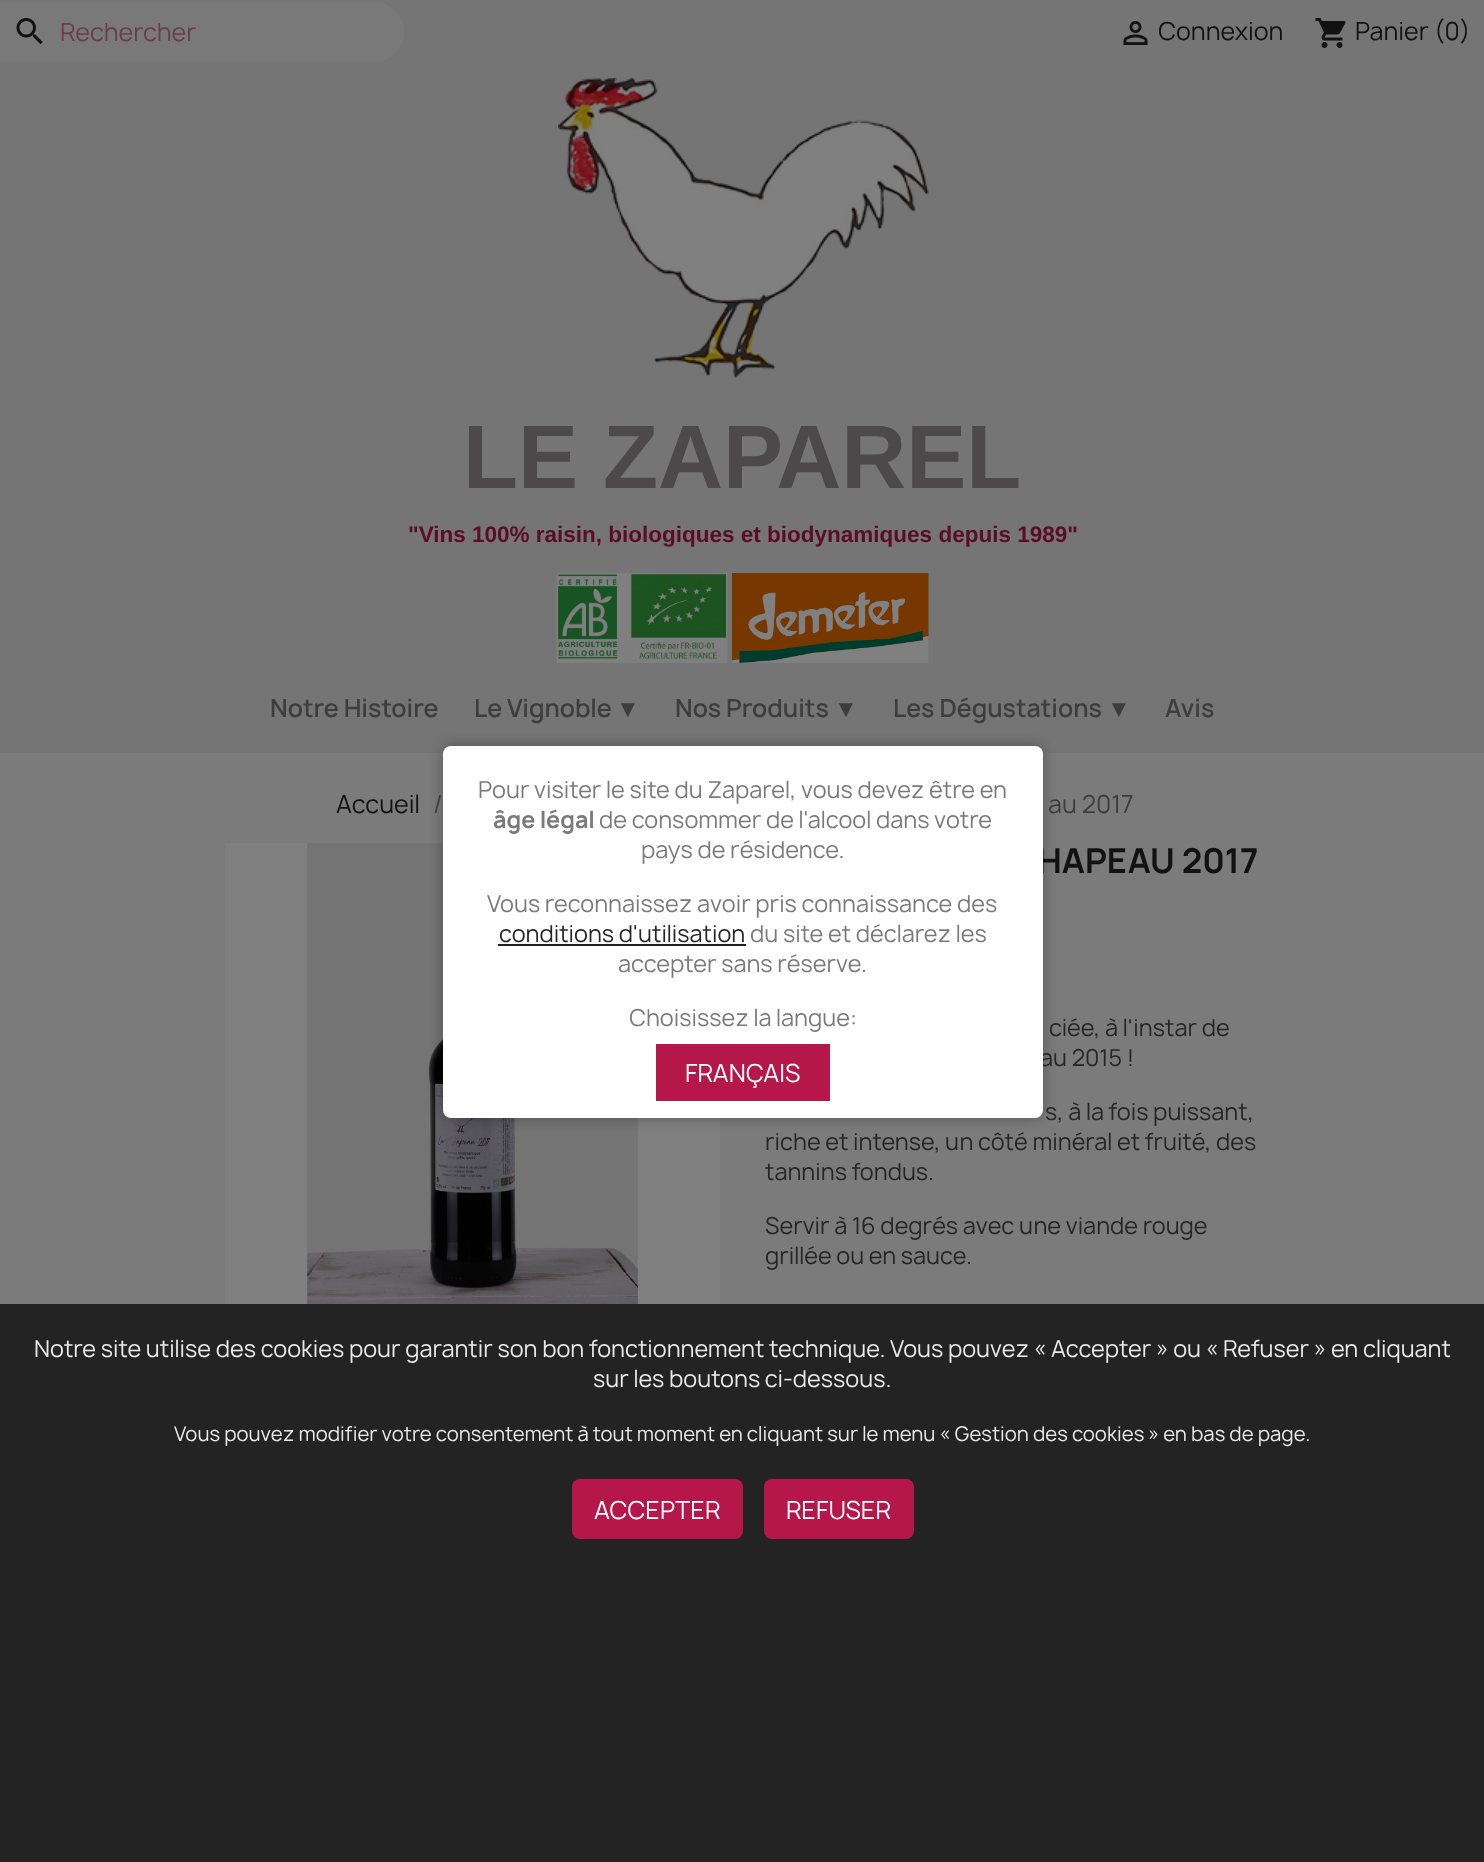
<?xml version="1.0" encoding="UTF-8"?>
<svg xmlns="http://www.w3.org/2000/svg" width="1484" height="1862">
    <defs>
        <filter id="blur1" x="-50%" y="-200%" width="200%" height="500%"><feGaussianBlur stdDeviation="7.5"/></filter>
    </defs>
    <rect width="100%" height="100%" fill="#7B7B7B"/>
    <rect x="0" y="0" width="1484" height="753" fill="#757575"/>
    <path d="M 0 2 H 374 C 390.5 2 404 15.5 404 32 C 404 48.5 390.5 62 374 62 H 0 Z" fill="#797979"/>
    <image x="16" y="18" width="27" height="27" href="img_01.png"/>
    <text x="60" y="41" font-family="Manrope" font-size="24" fill="#693E4C">Rechercher</text>
    <image x="1123" y="21" width="25" height="24" href="img_02.png"/>
    <text x="1158" y="40" font-family="Manrope" font-size="24" fill="#121212">Connexion</text>
    <image x="1315" y="18" width="31" height="30" href="img_03.png"/>
    <text x="1355" y="40" font-family="Manrope" font-size="24" fill="#121212">Panier (0)</text>
    <image x="558" y="78" width="371" height="300" href="img_04.png"/>
    <text x="463" y="488" font-family="Liberation Sans" font-size="90" font-weight="700" fill="#4B4949">LE ZAPAREL</text>
    <text x="408" y="542" font-family="Liberation Sans" font-size="22.5" font-weight="700" fill="#5B0C26">"Vins 100% raisin, biologiques et biodynamiques depuis 1989"</text>
    <image x="556" y="573" width="172" height="90" href="img_05.png"/>
    <image x="732" y="573" width="197" height="90" href="img_06.png"/>
    <text x="270" y="717" font-family="Manrope" font-size="24" font-weight="600" fill="#3D3D3D">Notre Histoire</text>
    <text x="474" y="717" font-family="Manrope" font-size="24" font-weight="600" fill="#3D3D3D">Le Vignoble</text>
    <text x="616" y="717" font-family="Liberation Sans" font-size="24" font-weight="700" fill="#3D3D3D">▼</text>
    <text x="675" y="717" font-family="Manrope" font-size="24" font-weight="600" fill="#3D3D3D">Nos Produits</text>
    <text x="834" y="717" font-family="Liberation Sans" font-size="24" font-weight="700" fill="#3D3D3D">▼</text>
    <text x="893" y="717" font-family="Manrope" font-size="24" font-weight="600" fill="#3D3D3D">Les Dégustations</text>
    <text x="1107" y="717" font-family="Liberation Sans" font-size="24" font-weight="700" fill="#3D3D3D">▼</text>
    <text x="1165" y="717" font-family="Manrope" font-size="24" font-weight="600" fill="#3D3D3D">Avis</text>
    <rect x="225" y="843" width="495" height="461" fill="#808080"/>
    <image x="306" y="843" width="335" height="461" href="img_07.png"/>
    <rect x="443" y="746" width="600" height="372" rx="8" fill="#000000" fill-opacity="0.3" filter="url(#blur1)"/>
    <text x="1037" y="873" font-family="Manrope" font-size="33" font-weight="700" fill="#121212">HAPEAU 2017</text>
    <text x="1040" y="1066" font-family="Manrope" font-size="22.5" fill="#252525">au 2015 !</text>
    <rect x="443" y="746" width="600" height="372" rx="8" fill="#FFFFFF"/>
    <text x="478" y="798" font-family="Manrope" font-size="22.5" fill="#7A7A7A">Pour visiter le site du Zaparel, vous devez être en</text>
    <text x="493" y="828" font-family="Manrope" font-size="22.5" font-weight="700" fill="#7A7A7A">âge légal</text>
    <text x="599" y="828" font-family="Manrope" font-size="22.5" fill="#7A7A7A">de consommer de l'alcool dans votre</text>
    <text x="641" y="858" font-family="Manrope" font-size="22.5" fill="#7A7A7A">pays de résidence.</text>
    <text x="487" y="912" font-family="Manrope" font-size="22.5" fill="#7A7A7A">Vous reconnaissez avoir pris connaissance des</text>
    <text x="499" y="942" font-family="Manrope" font-size="22.5" fill="#252525">conditions d'utilisation</text>
    <rect x="498" y="944" width="248" height="2" fill="#232323"/>
    <text x="750" y="942" font-family="Manrope" font-size="22.5" fill="#7A7A7A">du site et déclarez les</text>
    <text x="618" y="972" font-family="Manrope" font-size="22.5" fill="#7A7A7A">accepter sans réserve.</text>
    <text x="629" y="1026" font-family="Manrope" font-size="22.5" fill="#7A7A7A">Choisissez la langue:</text>
    <rect x="656" y="1044" width="174" height="57" fill="#B6174B"/>
    <text x="685" y="1082" font-family="Manrope" font-size="24" fill="#FFFFFF">FRANÇAIS</text>
    <text x="336" y="813" font-family="Manrope" font-size="24" fill="#121212">Accueil</text>
    <text x="433" y="813" font-family="Manrope" font-size="24" fill="#3D3D3D">/</text>
    <text x="1048" y="813" font-family="Manrope" font-size="24" fill="#3D3D3D">au 2017</text>
    <text x="1049" y="1036" font-family="Manrope" font-size="22.5" fill="#252525">ciée, à l'instar de</text>
    <text x="1045" y="1120" font-family="Manrope" font-size="22.5" fill="#252525">s, à la fois puissant,</text>
    <text font-family="Manrope" font-size="22.5" fill="#252525">
        <tspan x="765" y="1150">riche et intense, un côté minéral et fruité, des</tspan>
        <tspan x="765" y="1180">tannins fondus.</tspan>
    </text>
    <text font-family="Manrope" font-size="22.5" fill="#252525">
        <tspan x="765" y="1234">Servir à 16 degrés avec une viande rouge</tspan>
        <tspan x="765" y="1264">grillée ou en sauce.</tspan>
    </text>
    <rect x="0" y="1304" width="1484" height="558" fill="#232323"/>
    <text x="34" y="1357" font-family="Manrope" font-size="22.5" fill="#E9E9E9">Notre site utilise des cookies pour garantir son bon fonctionnement technique. Vous pouvez « Accepter » ou « Refuser » en cliquant</text>
    <text x="593" y="1387" font-family="Manrope" font-size="22.5" fill="#E9E9E9">sur les boutons ci-dessous.</text>
    <text x="174" y="1441" font-family="Manrope" font-size="19.5" fill="#E9E9E9">Vous pouvez modifier votre consentement à tout moment en cliquant sur le menu « Gestion des cookies » en bas de page.</text>
    <rect x="572" y="1479" width="171" height="60" rx="8" fill="#B6174B"/>
    <text x="594" y="1519" font-family="Manrope" font-size="24" fill="#FFFFFF">ACCEPTER</text>
    <rect x="764" y="1479" width="150" height="60" rx="8" fill="#B6174B"/>
    <text x="786" y="1519" font-family="Manrope" font-size="24" fill="#FFFFFF">REFUSER</text>
</svg>
